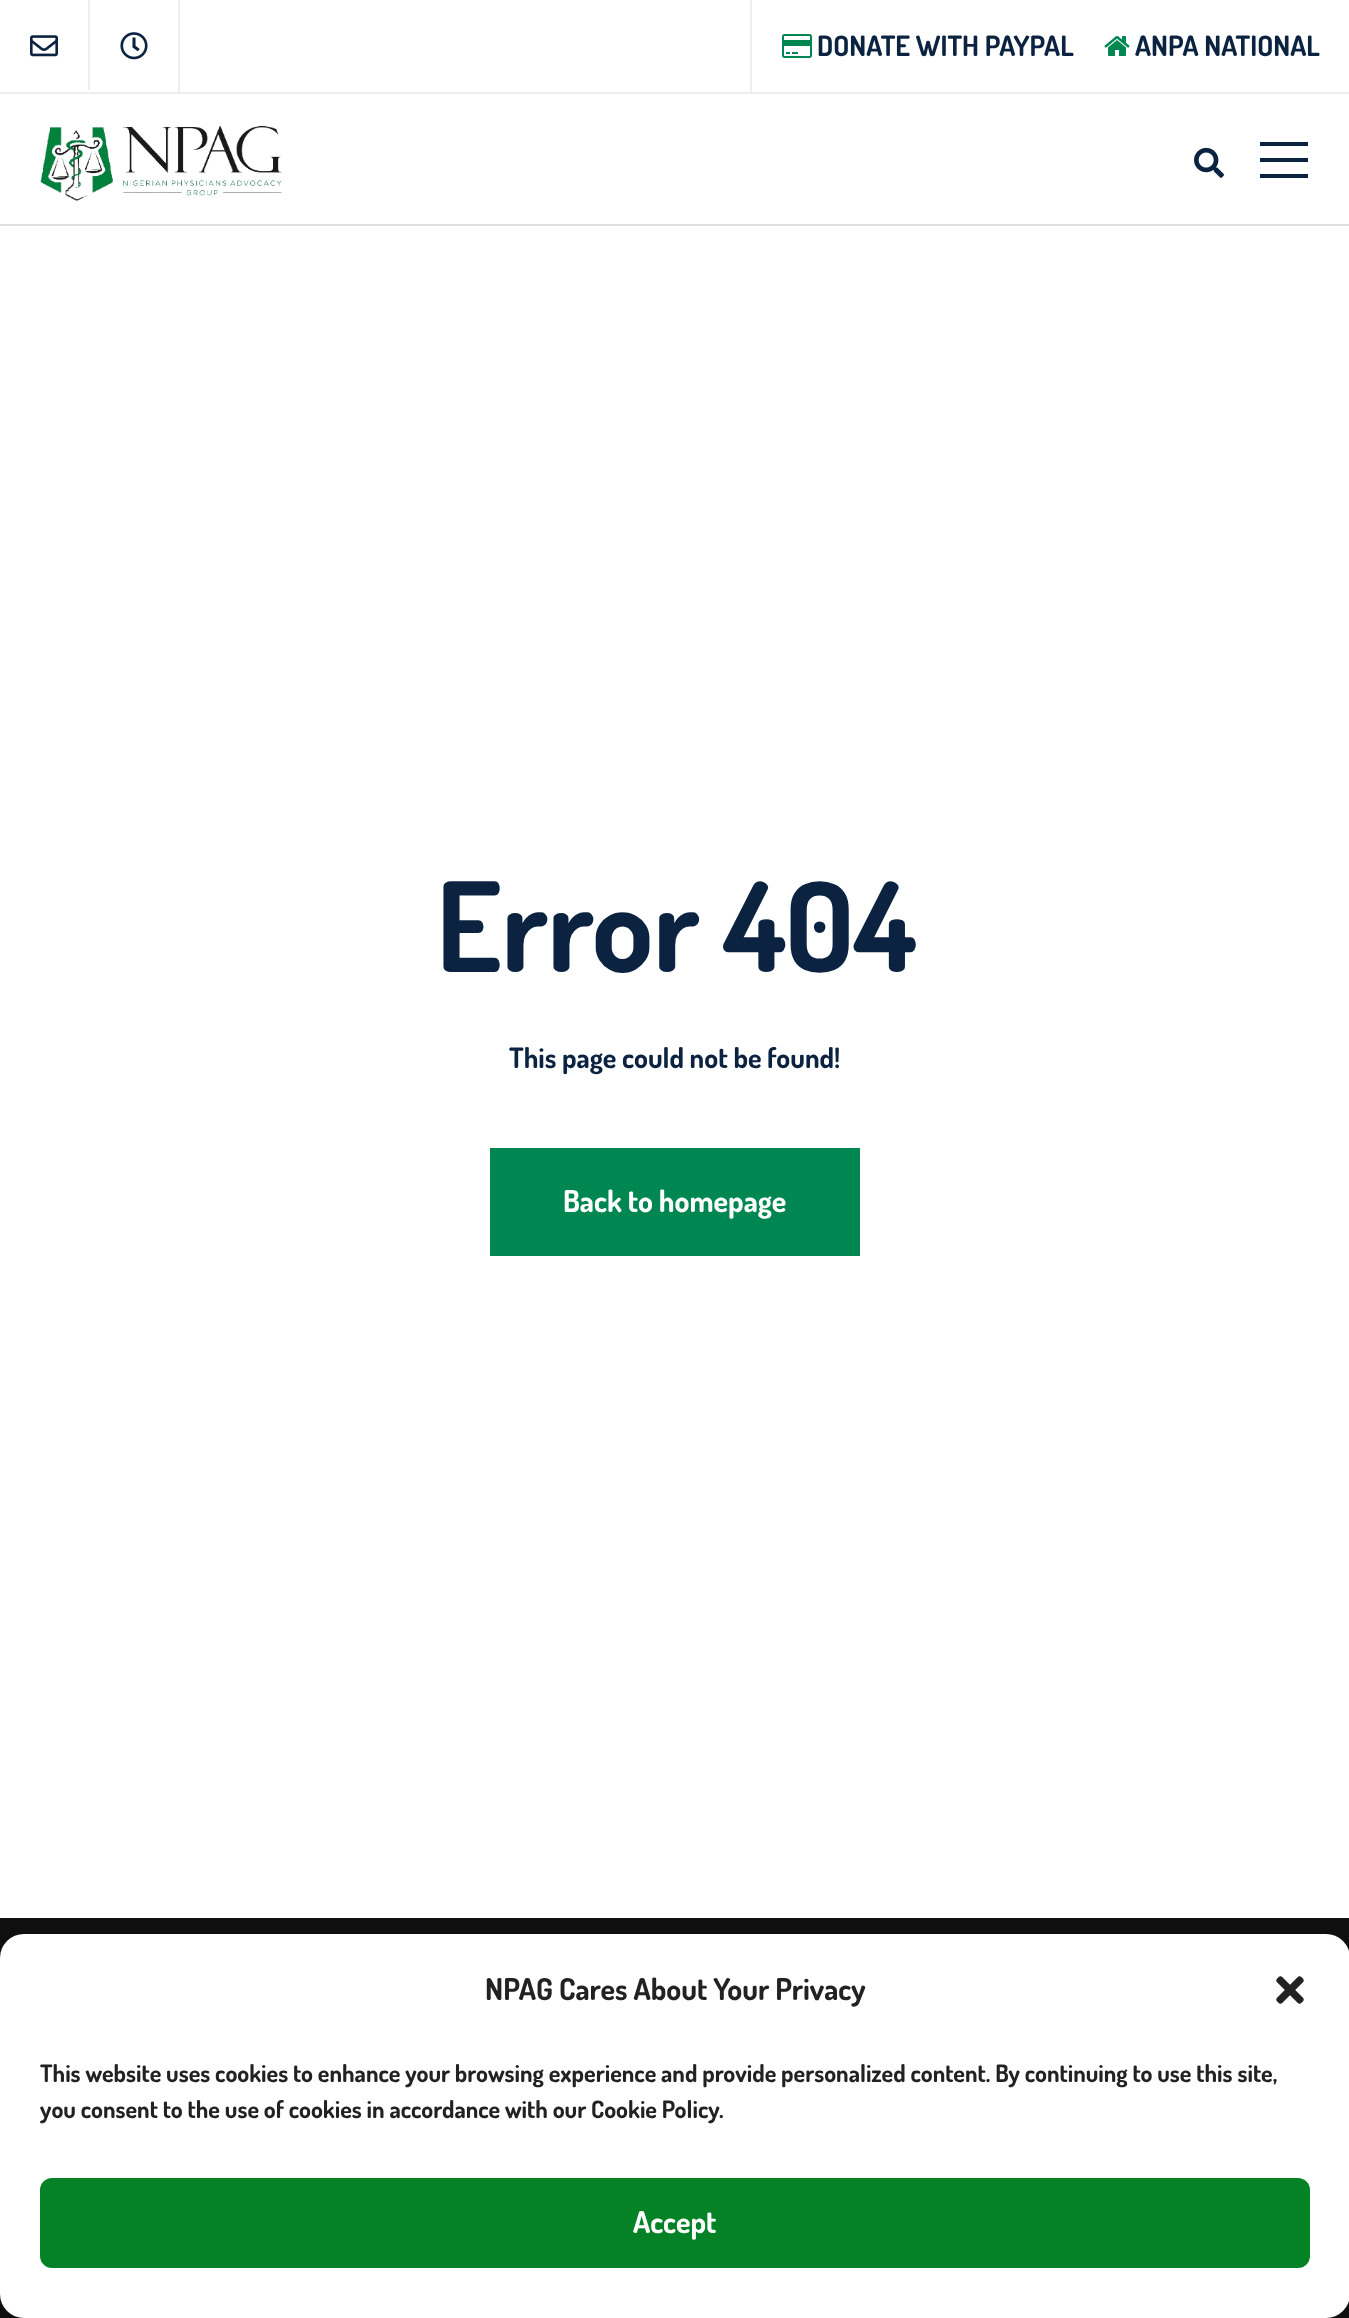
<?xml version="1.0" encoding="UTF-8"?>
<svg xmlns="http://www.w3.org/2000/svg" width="1349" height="2318">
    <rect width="100%" height="100%" fill="#0F0F0F"/>
    <rect x="0" y="224" width="1349" height="2" fill="#DFDFDF"/>
    <rect x="0" y="0" width="1349" height="92" fill="#FFFFFF"/>
    <rect x="0" y="92" width="1349" height="2" fill="#EDEDED"/>
    <rect x="178" y="0" width="2" height="92" fill="#EDEDED"/>
    <rect x="88" y="0" width="2" height="90" fill="#EDEDED"/>
    <image x="30" y="35" width="28" height="22" href="img_01.png"/>
    <image x="120" y="32" width="28" height="28" href="img_02.png"/>
    <rect x="750" y="0" width="2" height="92" fill="#EDEDED"/>
    <image x="782" y="34" width="30" height="24" href="img_03.png"/>
    <text x="817" y="56" font-family="Dosis" font-size="28" font-weight="700" fill="#0B2341">DONATE WITH PAYPAL</text>
    <image x="1104" y="36" width="26" height="20" href="img_04.png"/>
    <text x="1135" y="56" font-family="Dosis" font-size="28" font-weight="700" fill="#0B2341">ANPA NATIONAL</text>
    <rect x="0" y="94" width="1349" height="130" fill="#FFFFFF"/>
    <image x="40" y="125" width="242" height="76" href="img_05.png"/>
    <image x="1194" y="147" width="30" height="31" href="img_06.png"/>
    <rect x="1260" y="174" width="48" height="4" fill="#0B2341"/>
    <rect x="1260" y="142" width="48" height="4" fill="#0B2341"/>
    <rect x="1260" y="158" width="48" height="4" fill="#0B2341"/>
    <rect x="0" y="226" width="1349" height="1692" fill="#FFFFFF"/>
    <text x="436" y="972" font-family="Dosis" font-size="124" font-weight="700" letter-spacing="-0.5" fill="#0B2341">Error 404</text>
    <text x="509" y="1068" font-family="Dosis" font-size="28" font-weight="700" fill="#0B2341">This page could not be found!</text>
    <rect x="490" y="1148" width="370" height="108" fill="#008751"/>
    <text x="563" y="1212" font-family="Dosis" font-size="30" font-weight="700" fill="#FFFFFF">Back to homepage</text>
    <rect x="0" y="1934" width="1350" height="384" rx="24" fill="#FFFFFF"/>
    <text x="485" y="2000" font-family="Dosis" font-size="30" font-weight="700" fill="#222222">NPAG Cares About Your Privacy</text>
    <image x="1276" y="1976" width="28" height="28" href="img_07.png"/>
    <text font-family="Dosis" font-size="24" font-weight="700" fill="#222222">
        <tspan x="40" y="2082">This website uses cookies to enhance your browsing experience and provide personalized content. By continuing to use this site,</tspan>
        <tspan x="40" y="2118">you consent to the use of cookies in accordance with our Cookie Policy.</tspan>
    </text>
    <rect x="41" y="2179" width="1268" height="88" rx="11" fill="#048225" stroke="#048225" stroke-width="2"/>
    <text x="633" y="2233" font-family="Dosis" font-size="30" font-weight="700" fill="#FFFFFF">Accept</text>
</svg>
